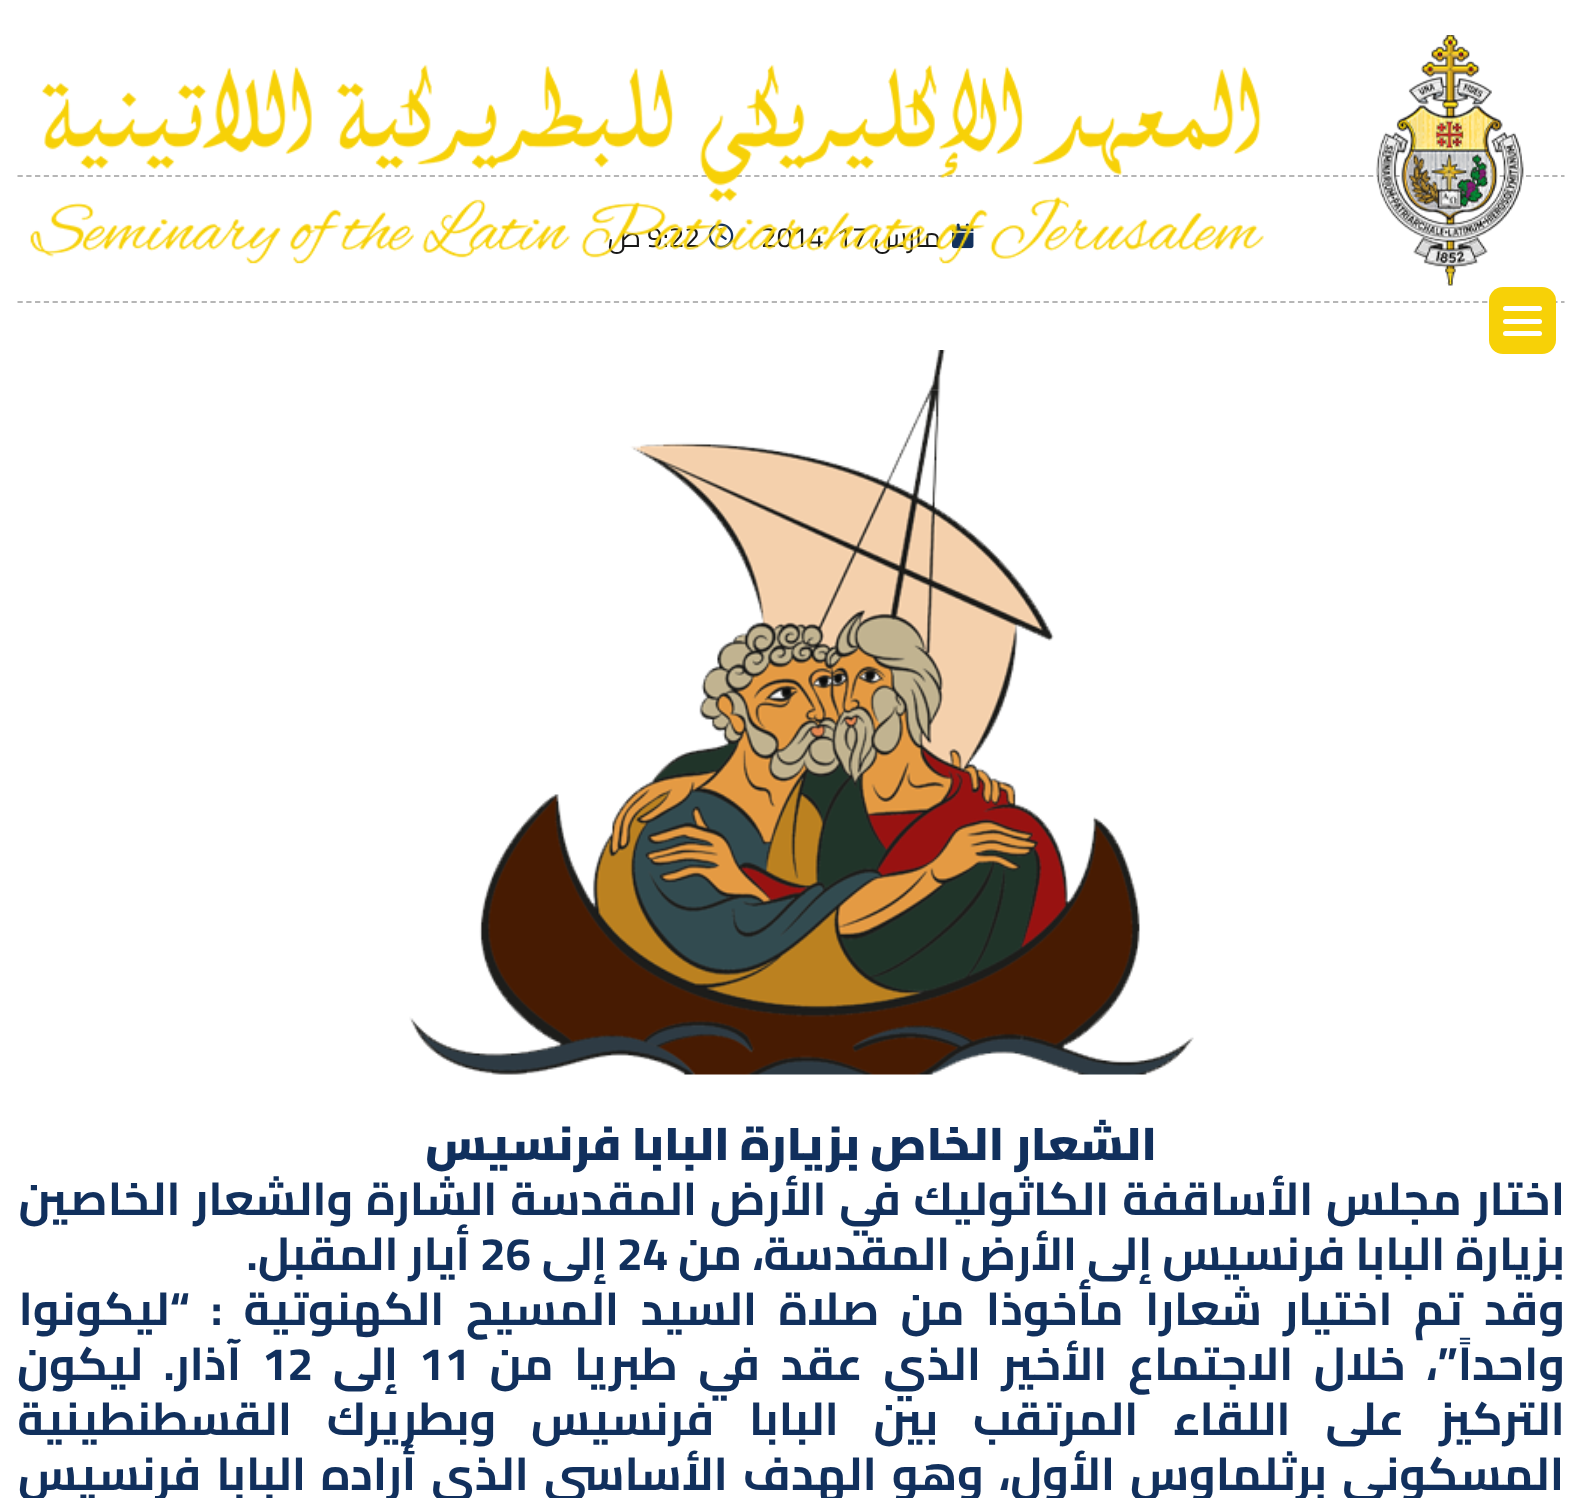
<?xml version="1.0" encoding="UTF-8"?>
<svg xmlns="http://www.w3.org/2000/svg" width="1581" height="1498">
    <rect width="100%" height="100%" fill="#FFFFFF"/>
    <image x="409" y="350" width="785" height="725" href="img_04.png"/>
    <rect x="929" y="389" width="11" height="2" fill="#FFFFFF" fill-opacity="0.1"/>
    <path d="M 17.5 176 H 1564.5" fill="none" stroke="#B6B6B6" stroke-width="1.8" stroke-dasharray="5.25 3.52"/>
    <image x="952" y="223" width="22" height="26" href="img_02.png"/>
    <text x="941" y="247" font-family="Cairo" font-size="28" direction="rtl" fill="#181818">مارس</text>
    <text x="836" y="247" font-family="Cairo" font-size="28" fill="#181818">17</text>
    <text x="761" y="247" font-family="Cairo" font-size="28" fill="#181818">2014</text>
    <image x="708" y="223" width="26" height="26" href="img_03.png"/>
    <text x="647" y="247" font-family="Cairo" font-size="28" fill="#181818">9:22</text>
    <text x="641" y="247" font-family="Cairo" font-size="28" direction="rtl" fill="#181818">ص</text>
    <image x="30" y="35" width="1494" height="251" href="img_01.png"/>
    <path d="M 17.5 302 H 1564.5" fill="none" stroke="#B6B6B6" stroke-width="1.8" stroke-dasharray="5.25 3.52"/>
    <rect x="1489" y="287" width="67" height="67" rx="14" fill="#F7D107"/>
    <rect x="1503" y="306" width="39" height="5" rx="2.5" fill="#FFFFFF"/>
    <rect x="1503" y="319" width="39" height="5" rx="2.5" fill="#FFFFFF"/>
    <rect x="1503" y="331" width="39" height="5" rx="2.5" fill="#FFFFFF"/>
    <text x="1157" y="1160" font-family="Cairo" font-size="45.9" font-weight="900" direction="rtl" fill="#11305D">الشعار الخاص بزيارة البابا فرنسيس</text>
    <text font-family="Cairo" font-size="45.9" font-weight="700" direction="rtl" fill="#11305D">
        <tspan x="1565" y="1215" word-spacing="2.75">اختار مجلس الأساقفة الكاثوليك في الأرض المقدسة الشارة والشعار الخاصين</tspan>
        <tspan x="1565" y="1270">بزيارة البابا فرنسيس إلى الأرض المقدسة، من</tspan>
    </text>
    <text x="617" y="1270" font-family="Cairo" font-size="45.9" font-weight="700" fill="#11305D">24</text>
    <text x="607" y="1270" font-family="Cairo" font-size="45.9" font-weight="700" direction="rtl" fill="#11305D">إلى</text>
    <text x="480" y="1270" font-family="Cairo" font-size="45.9" font-weight="700" fill="#11305D">26</text>
    <text x="470" y="1270" font-family="Cairo" font-size="45.9" font-weight="700" direction="rtl" fill="#11305D">أيار المقبل.</text>
    <text font-family="Cairo" font-size="45.9" font-weight="700" direction="rtl" fill="#11305D">
        <tspan x="1565" y="1325" word-spacing="11.25">وقد تم اختيار شعارا مأخوذا من صلاة السيد المسيح الكهنوتية : “ليكونوا</tspan>
        <tspan x="1565" y="1380" word-spacing="10.5">واحداً”، خلال الاجتماع الأخير الذي عقد في طبريا من</tspan>
    </text>
    <text x="419" y="1380" font-family="Cairo" font-size="45.9" font-weight="700" fill="#11305D">11</text>
    <text x="398" y="1380" font-family="Cairo" font-size="45.9" font-weight="700" direction="rtl" fill="#11305D">إلى</text>
    <text x="262" y="1380" font-family="Cairo" font-size="45.9" font-weight="700" fill="#11305D">12</text>
    <text x="241" y="1380" word-spacing="10.5" font-family="Cairo" font-size="45.9" font-weight="700" direction="rtl" fill="#11305D">آذار. ليكون</text>
    <text x="1565" y="1435" word-spacing="24.75" font-family="Cairo" font-size="45.9" font-weight="700" direction="rtl" fill="#11305D">التركيز على اللقاء المرتقب بين البابا فرنسيس وبطريرك القسطنطينية</text>
    <text x="1564" y="1490" word-spacing="5" font-family="Cairo" font-size="45.9" font-weight="700" direction="rtl" fill="#11305D">المسكوني برثلماوس الأول، وهو الهدف الأساسي الذي أراده البابا فرنسيس</text>
</svg>
